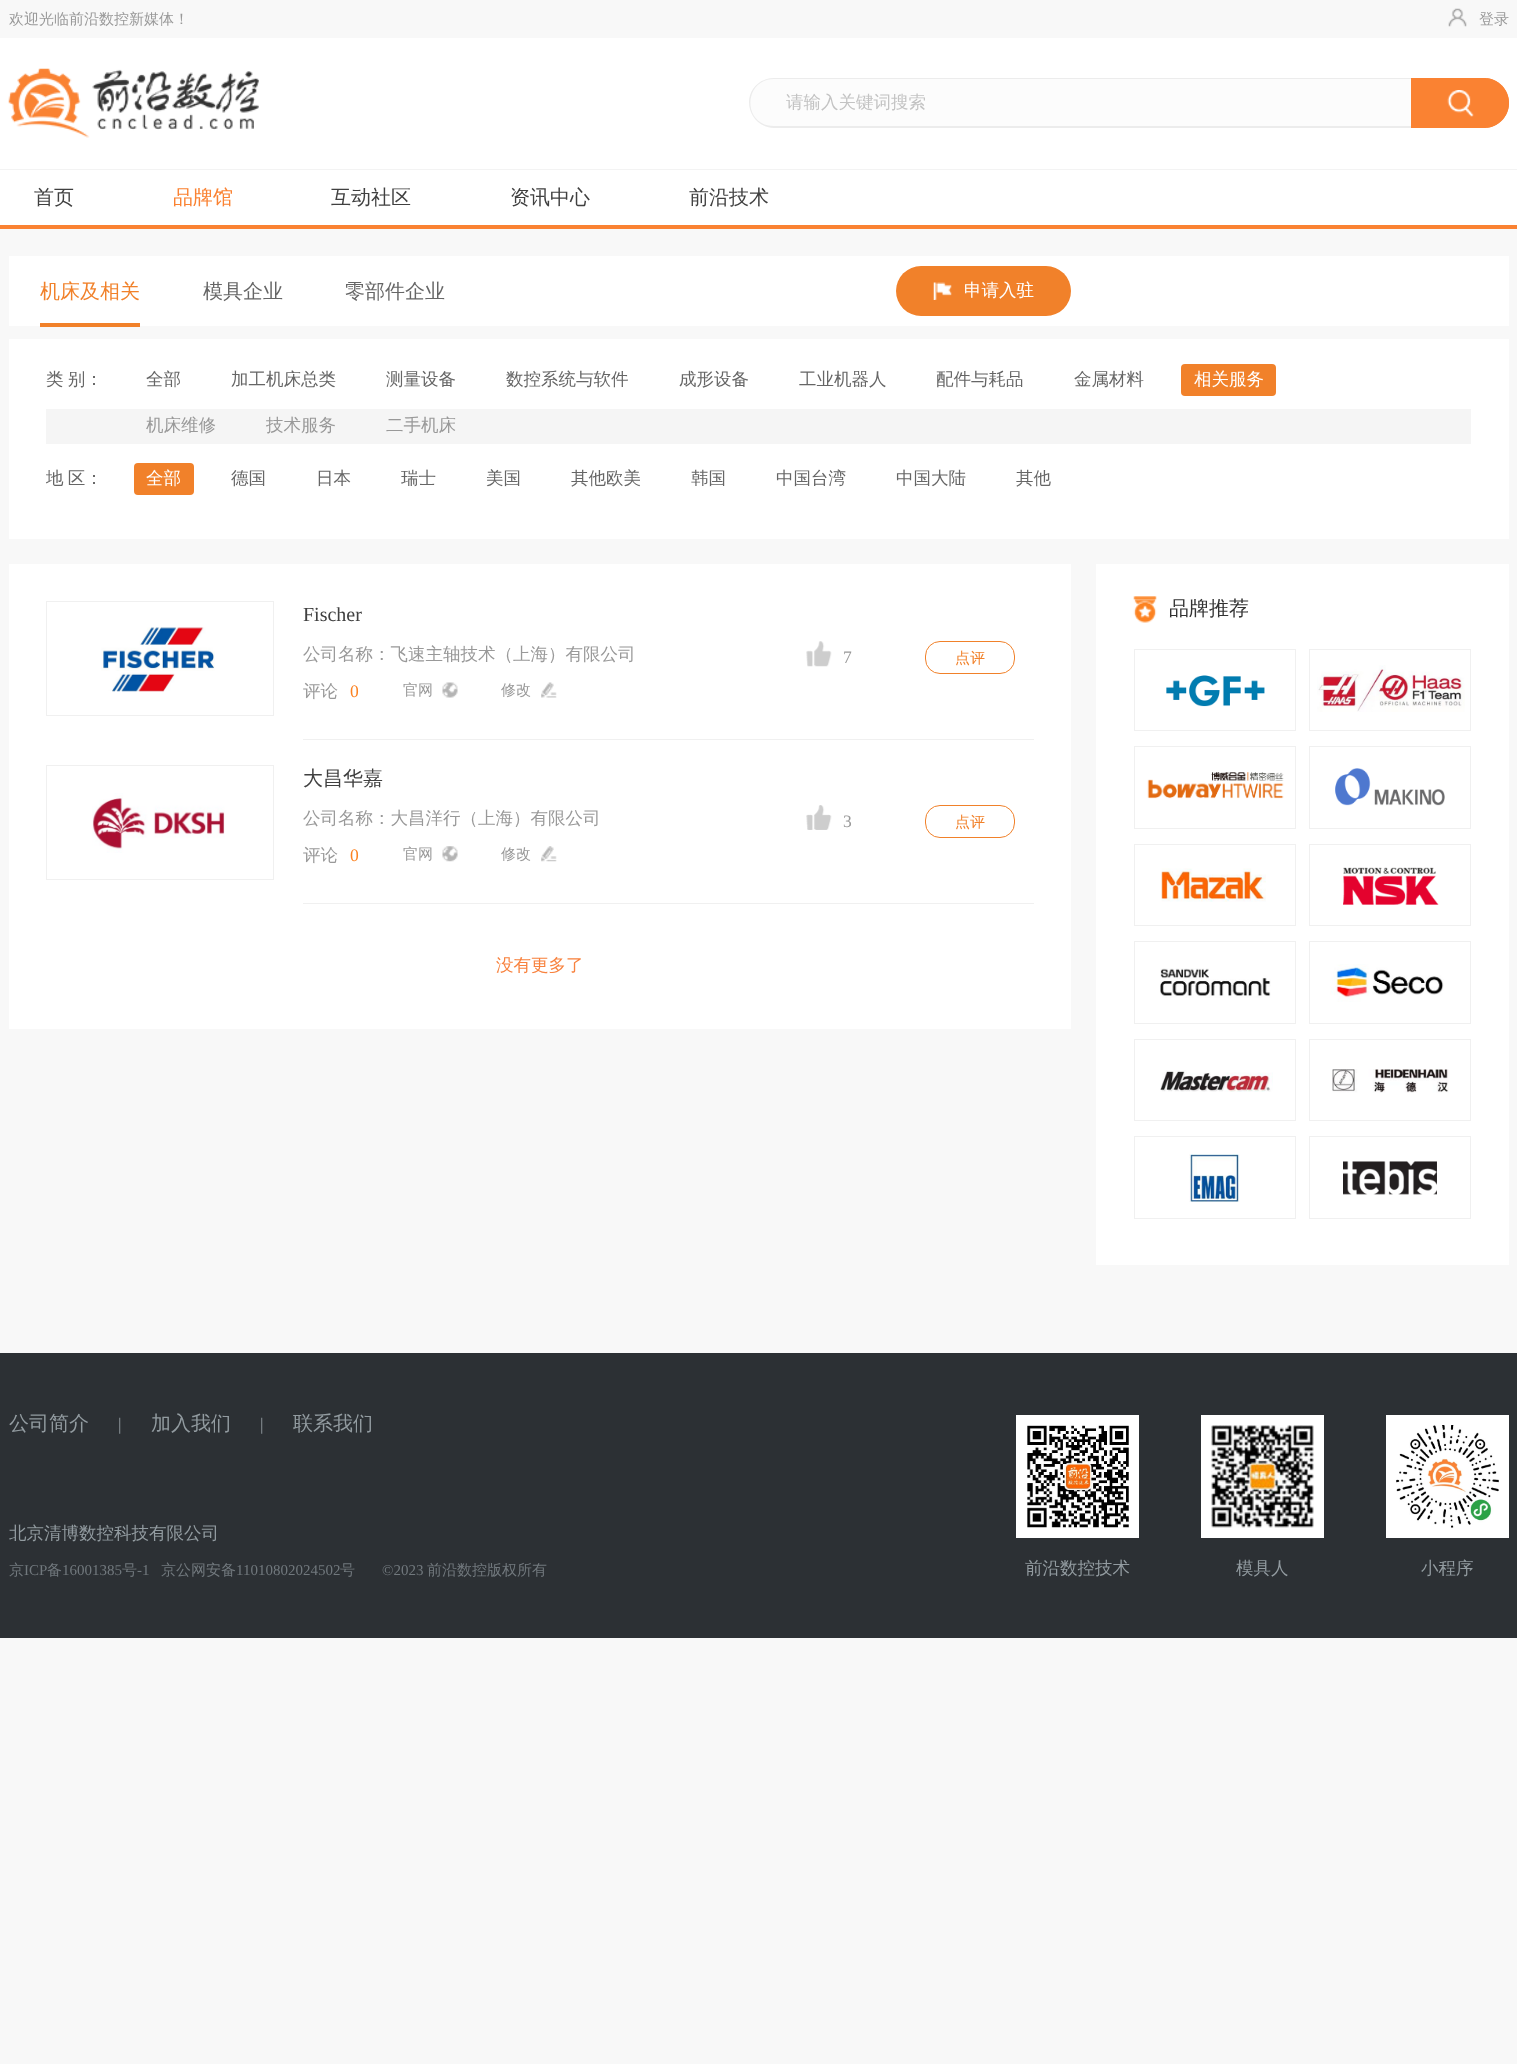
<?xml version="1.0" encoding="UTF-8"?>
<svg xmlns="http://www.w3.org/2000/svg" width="1517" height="2064">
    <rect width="100%" height="100%" fill="#F8F8F8"/>
    <text x="9" y="24" font-family="WenQuanYi Zen Hei" font-size="15" font-weight="500" fill="#999999">欢迎光临前沿数控新媒体！</text>
    <image x="1448" y="8" width="19" height="19" href="img_01.png"/>
    <text x="1479" y="24" font-family="WenQuanYi Zen Hei" font-size="15" font-weight="500" fill="#999999">登录</text>
    <rect x="0" y="38" width="1517" height="131" fill="#FFFFFF"/>
    <rect x="0" y="169" width="1517" height="1" fill="#F3F3F3"/>
    <image x="8" y="68" width="251" height="70" href="img_02.png"/>
    <path d="M 774 78 H 1411 V 128 H 774 C 760 128 749 117 749 103 C 749 89 760 78 774 78 Z" fill="#FCFCFC"/>
    <path d="M 774 78 H 1411 V 128 H 774 C 760 128 749 116 749 102 C 749 89 760 78 774 78 Z M 774 79 H 1411 V 126 H 774 C 742 126 743 79 774 79 Z" fill="#ECECEC" fill-rule="evenodd"/>
    <text x="786" y="108" font-family="WenQuanYi Zen Hei" font-size="17.5" font-weight="500" fill="#C3C3C3">请输入关键词搜索</text>
    <path d="M 1411 78 H 1484 C 1498 78 1509 89 1509 103 C 1509 117 1498 128 1484 128 H 1411 Z" fill="#FA8232"/>
    <image x="1447" y="90" width="27" height="27" href="img_03.png"/>
    <path d="M 1411.5 78.5 H 1484 C 1497.5 78.5 1508.5 89.5 1508.5 103 C 1508.5 116.5 1497.5 127.5 1484 127.5 H 1411.5 Z" fill="none" stroke="#FA8232"/>
    <rect x="0" y="170" width="1517" height="55" fill="#FFFFFF"/>
    <rect x="0" y="225" width="1517" height="4" fill="#FA8232"/>
    <text x="34" y="204" font-family="WenQuanYi Zen Hei" font-size="20" font-weight="500" fill="#404040">首页</text>
    <text x="173" y="204" font-family="WenQuanYi Zen Hei" font-size="20" font-weight="500" fill="#FA8232">品牌馆</text>
    <text x="331" y="204" font-family="WenQuanYi Zen Hei" font-size="20" font-weight="500" fill="#404040">互动社区</text>
    <text x="510" y="204" font-family="WenQuanYi Zen Hei" font-size="20" font-weight="500" fill="#404040">资讯中心</text>
    <text x="689" y="204" font-family="WenQuanYi Zen Hei" font-size="20" font-weight="500" fill="#404040">前沿技术</text>
    <rect x="9" y="256" width="1500" height="70" fill="#FFFFFF"/>
    <rect x="40" y="323" width="100" height="4" fill="#F1812A"/>
    <text x="40" y="298" font-family="WenQuanYi Zen Hei" font-size="20" font-weight="500" fill="#F1812A">机床及相关</text>
    <text x="203" y="298" font-family="WenQuanYi Zen Hei" font-size="20" font-weight="500" fill="#666666">模具企业</text>
    <text x="345" y="298" font-family="WenQuanYi Zen Hei" font-size="20" font-weight="500" fill="#666666">零部件企业</text>
    <rect x="896" y="266" width="175" height="50" rx="25" fill="#F1812A"/>
    <image x="933" y="282" width="19" height="18" href="img_04.png"/>
    <text x="964" y="296" font-family="WenQuanYi Zen Hei" font-size="17.5" font-weight="500" fill="#FFFFFF">申请入驻</text>
    <rect x="9" y="339" width="1500" height="200" fill="#FFFFFF"/>
    <text x="46" y="385" word-spacing="-1" font-family="WenQuanYi Zen Hei" font-size="17.5" font-weight="500" fill="#666666">类 别：</text>
    <text x="146" y="385" font-family="WenQuanYi Zen Hei" font-size="17.5" font-weight="500" fill="#666666">全部</text>
    <text x="231" y="385" font-family="WenQuanYi Zen Hei" font-size="17.5" font-weight="500" fill="#666666">加工机床总类</text>
    <text x="386" y="385" font-family="WenQuanYi Zen Hei" font-size="17.5" font-weight="500" fill="#666666">测量设备</text>
    <text x="506" y="385" font-family="WenQuanYi Zen Hei" font-size="17.5" font-weight="500" fill="#666666">数控系统与软件</text>
    <text x="679" y="385" font-family="WenQuanYi Zen Hei" font-size="17.5" font-weight="500" fill="#666666">成形设备</text>
    <text x="799" y="385" font-family="WenQuanYi Zen Hei" font-size="17.5" font-weight="500" fill="#666666">工业机器人</text>
    <text x="936" y="385" font-family="WenQuanYi Zen Hei" font-size="17.5" font-weight="500" fill="#666666">配件与耗品</text>
    <text x="1074" y="385" font-family="WenQuanYi Zen Hei" font-size="17.5" font-weight="500" fill="#666666">金属材料</text>
    <rect x="1181" y="364" width="95" height="32" rx="4" fill="#F1812A"/>
    <text x="1194" y="385" font-family="WenQuanYi Zen Hei" font-size="17.5" font-weight="500" fill="#FFFFFF">相关服务</text>
    <rect x="46" y="409" width="1425" height="35" fill="#F5F5F5"/>
    <text x="146" y="431" font-family="WenQuanYi Zen Hei" font-size="17.5" font-weight="500" fill="#999999">机床维修</text>
    <text x="266" y="431" font-family="WenQuanYi Zen Hei" font-size="17.5" font-weight="500" fill="#999999">技术服务</text>
    <text x="386" y="431" font-family="WenQuanYi Zen Hei" font-size="17.5" font-weight="500" fill="#999999">二手机床</text>
    <text x="46" y="484" word-spacing="-1" font-family="WenQuanYi Zen Hei" font-size="17.5" font-weight="500" fill="#666666">地 区：</text>
    <rect x="134" y="463" width="60" height="32" rx="4" fill="#F1812A"/>
    <text x="146" y="484" font-family="WenQuanYi Zen Hei" font-size="17.5" font-weight="500" fill="#FFFFFF">全部</text>
    <text x="231" y="484" font-family="WenQuanYi Zen Hei" font-size="17.5" font-weight="500" fill="#666666">德国</text>
    <text x="316" y="484" font-family="WenQuanYi Zen Hei" font-size="17.5" font-weight="500" fill="#666666">日本</text>
    <text x="401" y="484" font-family="WenQuanYi Zen Hei" font-size="17.5" font-weight="500" fill="#666666">瑞士</text>
    <text x="486" y="484" font-family="WenQuanYi Zen Hei" font-size="17.5" font-weight="500" fill="#666666">美国</text>
    <text x="571" y="484" font-family="WenQuanYi Zen Hei" font-size="17.5" font-weight="500" fill="#666666">其他欧美</text>
    <text x="691" y="484" font-family="WenQuanYi Zen Hei" font-size="17.5" font-weight="500" fill="#666666">韩国</text>
    <text x="776" y="484" font-family="WenQuanYi Zen Hei" font-size="17.5" font-weight="500" fill="#666666">中国台湾</text>
    <text x="896" y="484" font-family="WenQuanYi Zen Hei" font-size="17.5" font-weight="500" fill="#666666">中国大陆</text>
    <text x="1016" y="484" font-family="WenQuanYi Zen Hei" font-size="17.5" font-weight="500" fill="#666666">其他</text>
    <rect x="9" y="564" width="1062" height="465" fill="#FFFFFF"/>
    <rect x="46.5" y="601.5" width="227" height="114" fill="none" stroke="#F0F0F0"/>
    <image x="101" y="627" width="114" height="65" href="img_05.png"/>
    <rect x="303" y="739" width="731" height="1" fill="#F0F0F0"/>
    <text x="303" y="621" font-family="Liberation Serif" font-size="20" fill="#404040">Fischer</text>
    <text x="303" y="660" font-family="WenQuanYi Zen Hei" font-size="17.5" font-weight="500" fill="#999999">公司名称：飞速主轴技术（上海）有限公司</text>
    <text x="303" y="697" font-family="WenQuanYi Zen Hei" font-size="17.5" font-weight="500" fill="#999999">评论</text>
    <text x="350" y="697" font-family="Liberation Serif" font-size="17.5" fill="#FC8221">0</text>
    <text x="403" y="695" font-family="WenQuanYi Zen Hei" font-size="15" font-weight="500" fill="#999999">官网</text>
    <image x="442" y="682" width="16" height="16" href="img_06.png"/>
    <text x="501" y="695" font-family="WenQuanYi Zen Hei" font-size="15" font-weight="500" fill="#999999">修改</text>
    <image x="541" y="682" width="16" height="16" href="img_07.png"/>
    <image x="806" y="641" width="26" height="26" href="img_08.png"/>
    <text x="843" y="663" font-family="Liberation Serif" font-size="17.5" fill="#999999">7</text>
    <rect x="925.5" y="641.5" width="89" height="32" rx="14.5" fill="none" stroke="#F1812A"/>
    <text x="955" y="663" font-family="WenQuanYi Zen Hei" font-size="15" font-weight="500" fill="#F1812A">点评</text>
    <rect x="46.5" y="765.5" width="227" height="114" fill="none" stroke="#F0F0F0"/>
    <image x="92" y="793" width="133" height="60" href="img_09.png"/>
    <rect x="303" y="903" width="731" height="1" fill="#F0F0F0"/>
    <text x="303" y="785" font-family="WenQuanYi Zen Hei" font-size="20" font-weight="500" fill="#404040">大昌华嘉</text>
    <text x="303" y="824" font-family="WenQuanYi Zen Hei" font-size="17.5" font-weight="500" fill="#999999">公司名称：大昌洋行（上海）有限公司</text>
    <text x="303" y="861" font-family="WenQuanYi Zen Hei" font-size="17.5" font-weight="500" fill="#999999">评论</text>
    <text x="350" y="861" font-family="Liberation Serif" font-size="17.5" fill="#FC8221">0</text>
    <text x="403" y="859" font-family="WenQuanYi Zen Hei" font-size="15" font-weight="500" fill="#999999">官网</text>
    <image x="442" y="846" width="16" height="16" href="img_10.png"/>
    <text x="501" y="859" font-family="WenQuanYi Zen Hei" font-size="15" font-weight="500" fill="#999999">修改</text>
    <image x="541" y="846" width="16" height="16" href="img_11.png"/>
    <image x="806" y="805" width="26" height="25" href="img_12.png"/>
    <text x="843" y="827" font-family="Liberation Serif" font-size="17.5" fill="#999999">3</text>
    <rect x="925.5" y="805.5" width="89" height="32" rx="14.5" fill="none" stroke="#F1812A"/>
    <text x="955" y="827" font-family="WenQuanYi Zen Hei" font-size="15" font-weight="500" fill="#F1812A">点评</text>
    <text x="496" y="971" font-family="WenQuanYi Zen Hei" font-size="17.5" font-weight="500" fill="#F8823E">没有更多了</text>
    <rect x="1096" y="564" width="413" height="701" fill="#FFFFFF"/>
    <image x="1133" y="596" width="24" height="27" href="img_13.png"/>
    <text x="1169" y="615" font-family="WenQuanYi Zen Hei" font-size="20" font-weight="500" fill="#333333">品牌推荐</text>
    <rect x="1134.5" y="649.5" width="161" height="81" fill="none" stroke="#F0F0F0"/>
    <image x="1166" y="675" width="99" height="32" href="img_14.png"/>
    <rect x="1309.5" y="649.5" width="161" height="81" fill="none" stroke="#F0F0F0"/>
    <image x="1317" y="665" width="148" height="47" href="img_15.png"/>
    <rect x="1134.5" y="746.5" width="161" height="82" fill="none" stroke="#F0F0F0"/>
    <image x="1147" y="772" width="137" height="27" href="img_16.png"/>
    <rect x="1309.5" y="746.5" width="161" height="82" fill="none" stroke="#F0F0F0"/>
    <image x="1335" y="768" width="110" height="38" href="img_17.png"/>
    <rect x="1134.5" y="844.5" width="161" height="81" fill="none" stroke="#F0F0F0"/>
    <image x="1161" y="868" width="105" height="34" href="img_18.png"/>
    <rect x="1309.5" y="844.5" width="161" height="81" fill="none" stroke="#F0F0F0"/>
    <image x="1343" y="867" width="96" height="38" href="img_19.png"/>
    <rect x="1134.5" y="941.5" width="161" height="82" fill="none" stroke="#F0F0F0"/>
    <image x="1160" y="968" width="111" height="30" href="img_20.png"/>
    <rect x="1309.5" y="941.5" width="161" height="82" fill="none" stroke="#F0F0F0"/>
    <image x="1330" y="964" width="114" height="38" href="img_21.png"/>
    <rect x="1134.5" y="1039.5" width="161" height="81" fill="none" stroke="#F0F0F0"/>
    <image x="1160" y="1070" width="113" height="22" href="img_22.png"/>
    <rect x="1309.5" y="1039.5" width="161" height="81" fill="none" stroke="#F0F0F0"/>
    <image x="1332" y="1069" width="117" height="24" href="img_23.png"/>
    <rect x="1134.5" y="1136.5" width="161" height="82" fill="none" stroke="#F0F0F0"/>
    <image x="1189" y="1154" width="51" height="48" href="img_24.png"/>
    <rect x="1309.5" y="1136.5" width="161" height="82" fill="none" stroke="#F0F0F0"/>
    <image x="1343" y="1161" width="94" height="34" href="img_25.png"/>
    <rect x="0" y="1353" width="1517" height="285" fill="#2C3034"/>
    <text x="9" y="1430" font-family="WenQuanYi Zen Hei" font-size="20" font-weight="500" fill="#929BA0">公司简介</text>
    <text x="118" y="1430" font-family="Liberation Serif" font-size="17.5" fill="#929BA0">|</text>
    <text x="151" y="1430" font-family="WenQuanYi Zen Hei" font-size="20" font-weight="500" fill="#929BA0">加入我们</text>
    <text x="260" y="1430" font-family="Liberation Serif" font-size="17.5" fill="#929BA0">|</text>
    <text x="293" y="1430" font-family="WenQuanYi Zen Hei" font-size="20" font-weight="500" fill="#929BA0">联系我们</text>
    <text x="9" y="1539" font-family="WenQuanYi Zen Hei" font-size="17.5" font-weight="500" fill="#929BA0">北京清博数控科技有限公司</text>
    <text x="9" y="1575" font-family="WenQuanYi Zen Hei" font-size="15" font-weight="500" fill="#71787D">京</text>
    <text x="24" y="1575" font-family="Liberation Serif" font-size="15" fill="#71787D">ICP</text>
    <text x="47" y="1575" font-family="WenQuanYi Zen Hei" font-size="15" font-weight="500" fill="#71787D">备</text>
    <text x="62" y="1575" font-family="Liberation Serif" font-size="15" fill="#71787D">16001385</text>
    <text x="122" y="1575" font-family="WenQuanYi Zen Hei" font-size="15" font-weight="500" fill="#71787D">号</text>
    <text x="137" y="1575" font-family="Liberation Serif" font-size="15" fill="#71787D">-1</text>
    <text x="161" y="1575" font-family="WenQuanYi Zen Hei" font-size="15" font-weight="500" fill="#71787D">京公网安备</text>
    <text x="236" y="1575" font-family="Liberation Serif" font-size="15" fill="#71787D">11010802024502</text>
    <text x="340" y="1575" font-family="WenQuanYi Zen Hei" font-size="15" font-weight="500" fill="#71787D">号</text>
    <text x="382" y="1575" font-family="Liberation Serif" font-size="15" fill="#71787D">©2023</text>
    <text x="427" y="1575" font-family="WenQuanYi Zen Hei" font-size="15" font-weight="500" fill="#71787D">前沿数控版权所有</text>
    <rect x="1016" y="1415" width="123" height="123" fill="#FFFFFF"/>
    <image x="1027" y="1425" width="102" height="103" href="img_26.png"/>
    <text x="1025" y="1574" font-family="WenQuanYi Zen Hei" font-size="17.5" font-weight="500" fill="#929BA0">前沿数控技术</text>
    <rect x="1201" y="1415" width="123" height="123" fill="#FFFFFF"/>
    <image x="1211" y="1425" width="103" height="103" href="img_27.png"/>
    <text x="1236" y="1574" font-family="WenQuanYi Zen Hei" font-size="17.5" font-weight="500" fill="#929BA0">模具人</text>
    <rect x="1386" y="1415" width="123" height="123" fill="#FFFFFF"/>
    <image x="1396" y="1425" width="103" height="103" href="img_28.png"/>
    <text x="1421" y="1574" font-family="WenQuanYi Zen Hei" font-size="17.5" font-weight="500" fill="#929BA0">小程序</text>
</svg>
